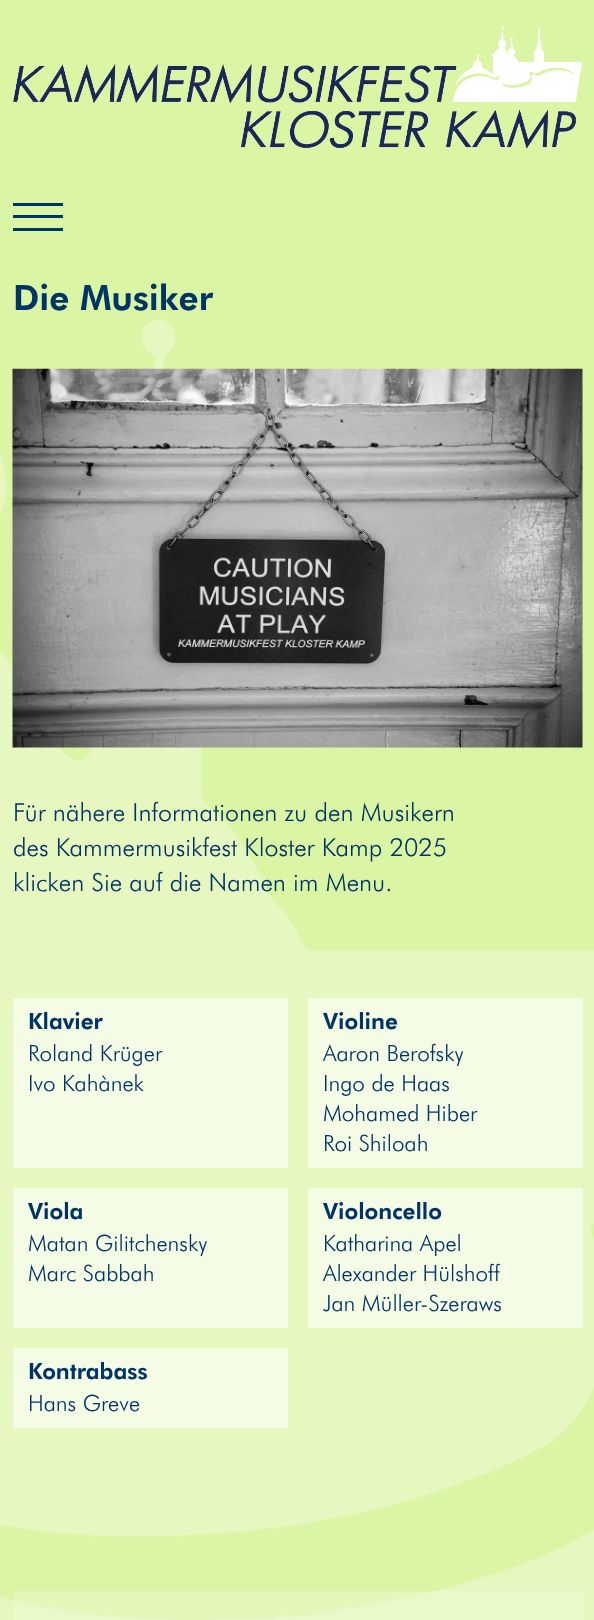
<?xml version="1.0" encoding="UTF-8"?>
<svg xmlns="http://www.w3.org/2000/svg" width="594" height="1620">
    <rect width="100%" height="100%" fill="#DAF5A3"/>
    <image x="0" y="319" width="594" height="1301" href="img_01.png"/>
    <image x="13" y="25" width="569" height="124" href="img_02.png"/>
    <rect x="13" y="215" width="50" height="3" fill="#003366"/>
    <rect x="13" y="203" width="50" height="3" fill="#003366"/>
    <rect x="13" y="228" width="50" height="3" fill="#003366"/>
    <text x="13" y="310" font-family="'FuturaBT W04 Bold'" font-size="35" font-weight="700" fill="#003366">Die Musiker</text>
    <image x="12" y="368" width="571" height="380" href="img_03.png"/>
    <text font-family="'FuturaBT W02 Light'" font-size="25" font-weight="300" fill="#003366">
        <tspan x="13" y="821">Für nähere Informationen zu den Musikern</tspan>
        <tspan x="13" y="856">des Kammermusikfest Kloster Kamp 2025</tspan>
        <tspan x="13" y="891">klicken Sie auf die Namen im Menu.</tspan>
    </text>
    <rect x="13" y="998" width="275" height="170" fill="#F5FCE6"/>
    <text x="28" y="1029" font-family="'FuturaBT W04 Bold'" font-size="22.5" font-weight="700" fill="#003366">Klavier</text>
    <text font-family="'FuturaBT W02 Light'" font-size="22.5" font-weight="300" fill="#003366">
        <tspan x="28" y="1061">Roland Krüger</tspan>
        <tspan x="28" y="1091">Ivo Kahànek</tspan>
    </text>
    <rect x="308" y="998" width="275" height="170" fill="#F5FCE6"/>
    <text x="323" y="1029" font-family="'FuturaBT W04 Bold'" font-size="22.5" font-weight="700" fill="#003366">Violine</text>
    <text font-family="'FuturaBT W02 Light'" font-size="22.5" font-weight="300" fill="#003366">
        <tspan x="323" y="1061">Aaron Berofsky</tspan>
        <tspan x="323" y="1091">Ingo de Haas</tspan>
        <tspan x="323" y="1121">Mohamed Hiber</tspan>
        <tspan x="323" y="1151">Roi Shiloah</tspan>
    </text>
    <rect x="13" y="1188" width="275" height="140" fill="#F5FCE6"/>
    <text x="28" y="1219" font-family="'FuturaBT W04 Bold'" font-size="22.5" font-weight="700" fill="#003366">Viola</text>
    <text font-family="'FuturaBT W02 Light'" font-size="22.5" font-weight="300" fill="#003366">
        <tspan x="28" y="1251">Matan Gilitchensky</tspan>
        <tspan x="28" y="1281">Marc Sabbah</tspan>
    </text>
    <rect x="308" y="1188" width="275" height="140" fill="#F5FCE6"/>
    <text x="323" y="1219" font-family="'FuturaBT W04 Bold'" font-size="22.5" font-weight="700" fill="#003366">Violoncello</text>
    <text font-family="'FuturaBT W02 Light'" font-size="22.5" font-weight="300" fill="#003366">
        <tspan x="323" y="1251">Katharina Apel</tspan>
        <tspan x="323" y="1281">Alexander Hülshoff</tspan>
        <tspan x="323" y="1311">Jan Müller-Szeraws</tspan>
    </text>
    <rect x="13" y="1348" width="275" height="80" fill="#F5FCE6"/>
    <text x="28" y="1379" font-family="'FuturaBT W04 Bold'" font-size="22.5" font-weight="700" fill="#003366">Kontrabass</text>
    <text x="28" y="1411" font-family="'FuturaBT W02 Light'" font-size="22.5" font-weight="300" fill="#003366">Hans Greve</text>
    <rect x="13" y="1591" width="570" height="29" fill="#ECFAD1" fill-opacity="0.5"/>
</svg>
